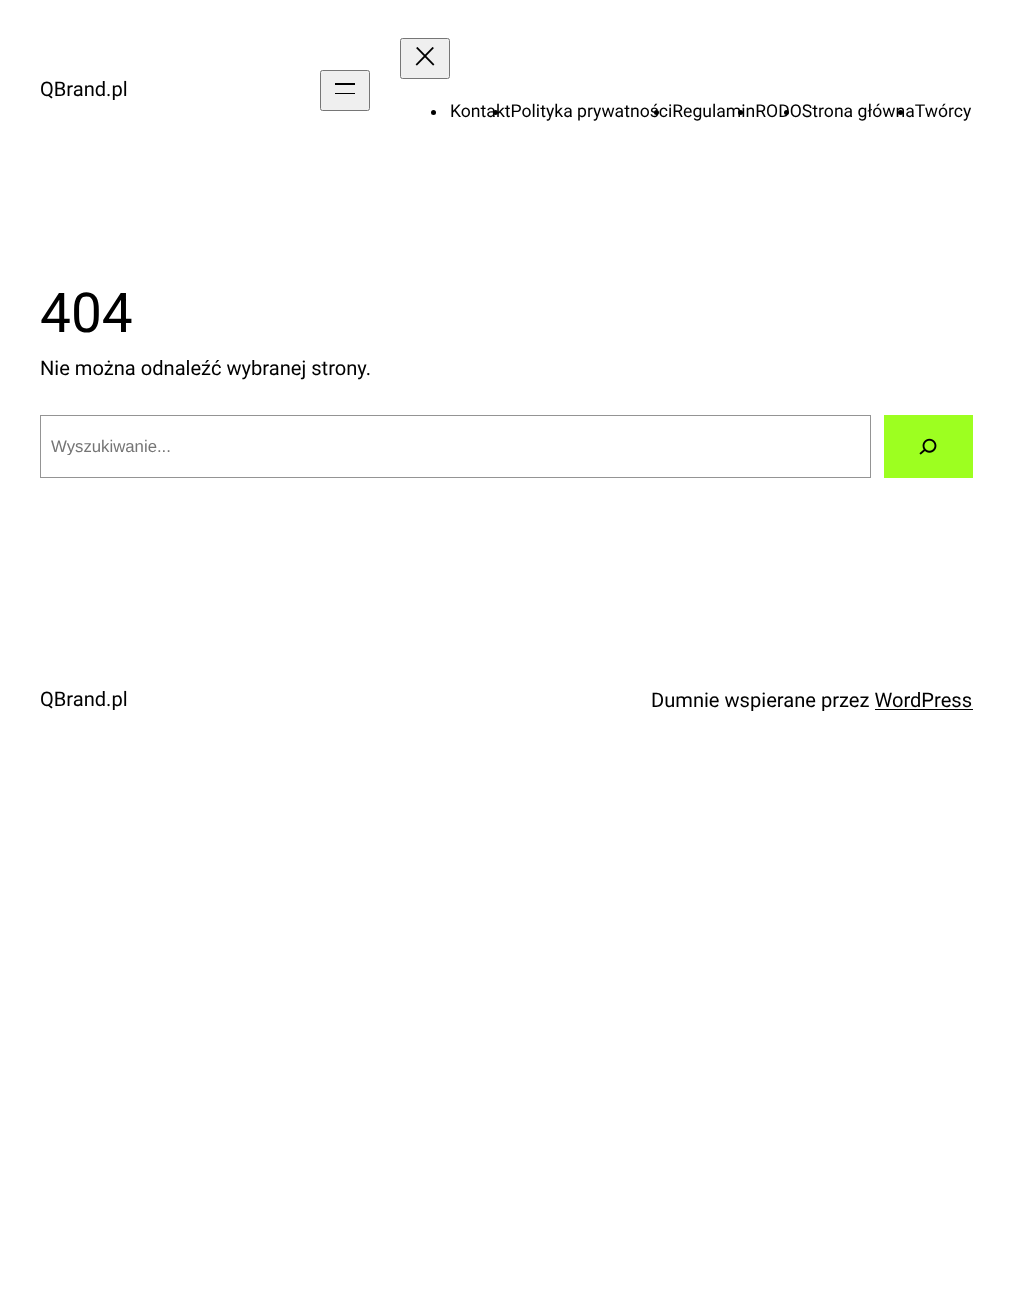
<?xml version="1.0" encoding="UTF-8"?>
<svg xmlns="http://www.w3.org/2000/svg" width="1012" height="1305">
    <defs>
        <clipPath id="clip1"><rect x="51" y="436" width="793" height="19"/></clipPath>
    </defs>
    <rect width="100%" height="100%" fill="#FFFFFF"/>
    <text x="40" y="96" font-family="Roboto" font-size="20.1" fill="#000000">QBrand.pl</text>
    <rect x="320.5" y="70.5" width="49" height="40" rx="2" fill="#EFEFEF" stroke="#767676"/>
    <rect x="335" y="83" width="20" height="2" fill="#000000"/>
    <rect x="335" y="93" width="20" height="1" fill="#000000"/>
    <rect x="400.5" y="38.5" width="49" height="40" rx="2" fill="#EFEFEF" stroke="#767676"/>
    <image x="415" y="47" width="20" height="19" href="img_01.png"/>
    <circle cx="433.5" cy="112.5" r="2.5" fill="#000000"/>
    <text x="450" y="117" font-family="Roboto" font-size="17.6" fill="#000000">KontaktPolityka prywatnościRegulaminRODOStrona głównaTwórcy</text>
    <circle cx="495.5" cy="112.5" r="2.5" fill="#000000"/>
    <circle cx="656.5" cy="112.5" r="2.5" fill="#000000"/>
    <circle cx="740.5" cy="112.5" r="2.5" fill="#000000"/>
    <circle cx="786.5" cy="112.5" r="2.5" fill="#000000"/>
    <circle cx="900.5" cy="112.5" r="2.5" fill="#000000"/>
    <text x="40" y="332" font-family="Roboto" font-size="55" fill="#000000">404</text>
    <text x="40" y="375" font-family="Roboto" font-size="20.1" fill="#000000">Nie można odnaleźć wybranej strony.</text>
    <rect x="40.5" y="415.5" width="830" height="62" fill="none" stroke="#949494"/>
    <g clip-path="url(#clip1)">
        <text x="51" y="452" font-family="Liberation Sans" font-size="16.75" fill="#757575">Wyszukiwanie...</text>
    </g>
    <rect x="884" y="415" width="89" height="63" fill="#9DFF20"/>
    <image x="919" y="438" width="18" height="17" href="img_02.png"/>
    <text x="40" y="706" font-family="Roboto" font-size="20.1" fill="#000000">QBrand.pl</text>
    <text x="651" y="707" font-family="Roboto" font-size="20.1" fill="#000000">Dumnie wspierane przez WordPress</text>
    <rect x="875" y="709" width="98" height="1" fill="#000000"/>
</svg>
